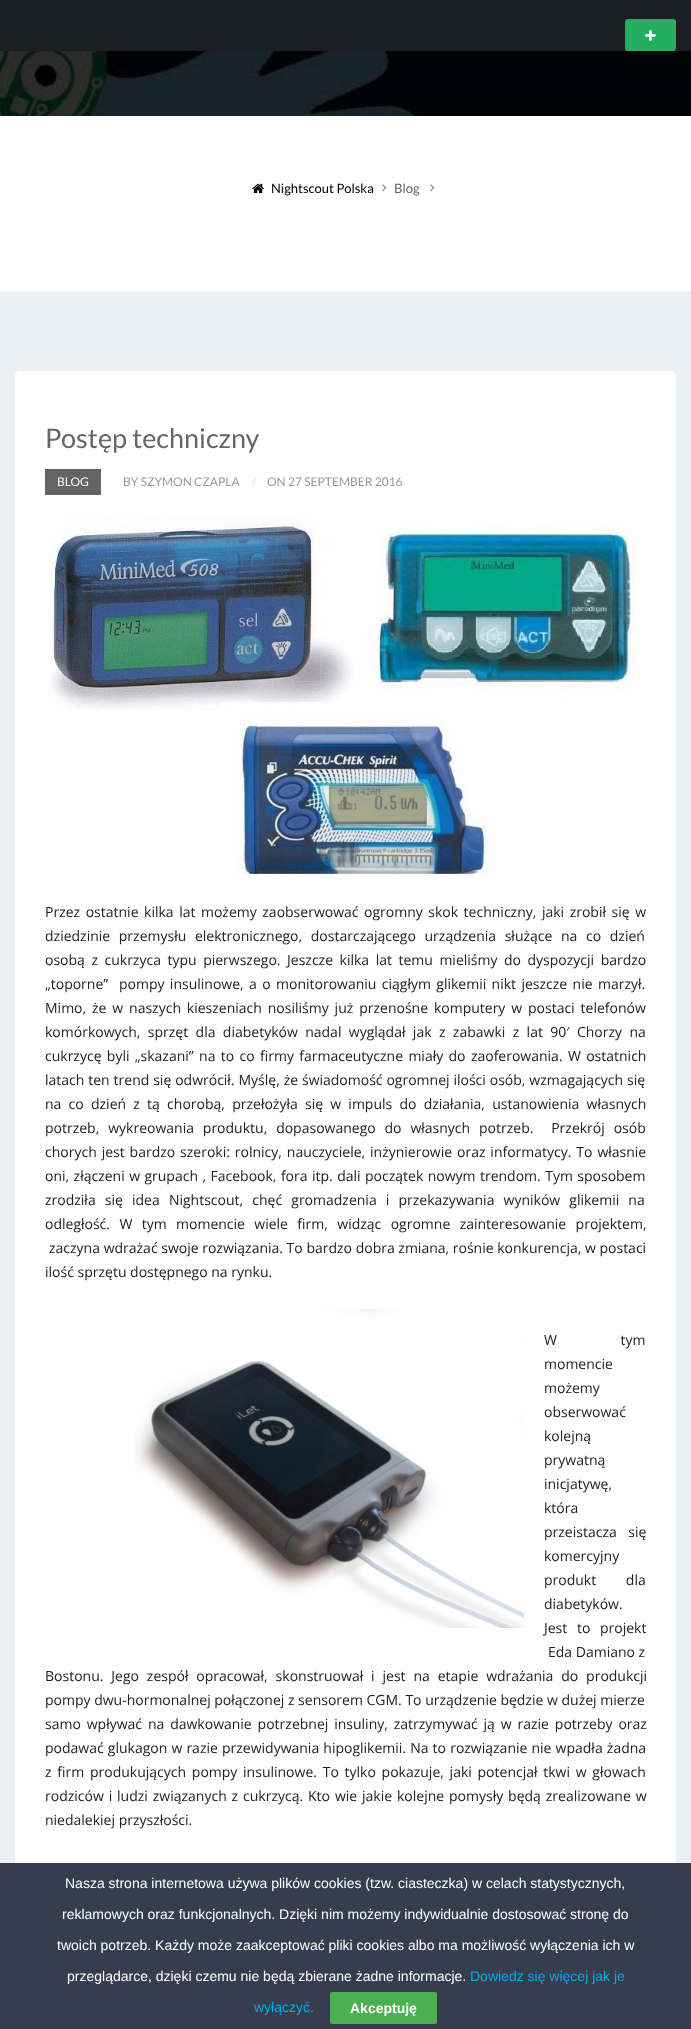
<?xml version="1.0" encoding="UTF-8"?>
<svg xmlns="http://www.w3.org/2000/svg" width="691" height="2029">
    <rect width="100%" height="100%" fill="#FFFFFF"/>
    <rect x="0" y="0" width="691" height="51" fill="#1B1F23"/>
    <rect x="625" y="19" width="51" height="32" rx="3" fill="#26AD60"/>
    <image x="645" y="30" width="11" height="11" href="img_01.png"/>
    <image x="0" y="51" width="691" height="65" href="img_02.png"/>
    <image x="252" y="183" width="12" height="11" href="img_03.png"/>
    <text x="271" y="193" font-family="Lato" font-size="13" fill="#000000">Nightscout Polska</text>
    <image x="382" y="184" width="5" height="8" href="img_04.png"/>
    <text x="394" y="193" font-family="Lato" font-size="13" fill="#666666">Blog</text>
    <image x="430" y="184" width="5" height="8" href="img_04.png"/>
    <rect x="0" y="291" width="691" height="1572" fill="#ECEFF4"/>
    <rect x="15" y="371" width="661" height="1511" rx="5" fill="#FFFFFF"/>
    <text x="45" y="448" font-family="Lato" font-size="27" fill="#666666">Postęp techniczny</text>
    <rect x="45" y="469" width="56" height="26" fill="#636363"/>
    <text x="57" y="486" font-family="Lato" font-size="12" fill="#FFFFFF">BLOG</text>
    <text x="123" y="486" font-family="Lato" font-size="12" fill="#989898">BY SZYMON CZAPLA</text>
    <text x="252" y="486" font-family="Lato" font-size="12" fill="#E2E2E2">/</text>
    <text x="267" y="486" font-family="Lato" font-size="12" fill="#989898">ON 27 SEPTEMBER 2016</text>
    <image x="49" y="517" width="586" height="358" href="img_05.png"/>
    <text font-family="Open Sans" font-size="14" fill="#212121" xml:space="preserve"><tspan x="45" y="917" word-spacing="1.9">Przez ostatnie kilka lat możemy zaobserwować ogromny skok techniczny, jaki zrobił się w</tspan><tspan x="45" y="941" word-spacing="5">dziedzinie przemysłu elektronicznego, dostarczającego urządzenia służące na co dzień</tspan><tspan x="45" y="965" word-spacing="2.9">osobą z cukrzyca typu pierwszego. Jeszcze kilka lat temu mieliśmy do dyspozycji bardzo</tspan><tspan x="45" y="989" word-spacing="1.75">„toporne”  pompy insulinowe, a o monitorowaniu ciągłym glikemii nikt jeszcze nie marzył.</tspan><tspan x="45" y="1013" word-spacing="2.25">Mimo, że w naszych kieszeniach nosiliśmy już przenośne komputery w postaci telefonów</tspan><tspan x="45" y="1037" word-spacing="3.75">komórkowych, sprzęt dla diabetyków nadal wyglądał jak z zabawki z lat 90′ Chorzy na</tspan><tspan x="45" y="1061" word-spacing="1.7">cukrzycę byli „skazani” na to co firmy farmaceutyczne miały do zaoferowania. W ostatnich</tspan><tspan x="45" y="1085" word-spacing="0.25">latach ten trend się odwrócił. Myślę, że świadomość ogromnej ilości osób, wzmagających się</tspan><tspan x="45" y="1109" word-spacing="3.6">na co dzień z tą chorobą, przełożyła się w impuls do działania, ustanowienia własnych</tspan><tspan x="45" y="1133" word-spacing="5.25">potrzeb, wykreowania produktu, dopasowanego do własnych potrzeb.  Przekrój osób</tspan><tspan x="45" y="1157" word-spacing="1.25">chorych jest bardzo szeroki: rolnicy, nauczyciele, inżynierowie oraz informatycy. To własnie</tspan><tspan x="45" y="1181" word-spacing="0.8">oni, złączeni w grupach , Facebook, fora itp. dali początek nowym trendom. Tym sposobem</tspan><tspan x="45" y="1205" word-spacing="5.5">zrodziła się idea Nightscout, chęć gromadzenia i przekazywania wyników glikemii na</tspan><tspan x="45" y="1229" word-spacing="5.75">odległość. W tym momencie wiele firm, widząc ogromne zainteresowanie projektem,</tspan></text>
    <text x="49" y="1253" font-family="Open Sans" font-size="14" fill="#212121">zaczyna wdrażać swoje rozwiązania. To bardzo dobra zmiana, rośnie konkurencja, w postaci</text>
    <text x="45" y="1277" font-family="Open Sans" font-size="14" fill="#212121">ilość sprzętu dostępnego na rynku.</text>
    <image x="134" y="1309" width="390" height="319" href="img_06.png"/>
    <text font-family="Open Sans" font-size="14" fill="#212121">
        <tspan x="544" y="1345" word-spacing="60">W tym</tspan>
        <tspan x="544" y="1369">momencie</tspan>
        <tspan x="544" y="1393">możemy</tspan>
        <tspan x="544" y="1417">obserwować</tspan>
        <tspan x="544" y="1441">kolejną</tspan>
        <tspan x="544" y="1465">prywatną</tspan>
        <tspan x="544" y="1489">inicjatywę,</tspan>
        <tspan x="544" y="1513">która</tspan>
        <tspan x="544" y="1537" word-spacing="8">przeistacza się</tspan>
        <tspan x="544" y="1561">komercyjny</tspan>
        <tspan x="544" y="1585" word-spacing="26">produkt dla</tspan>
        <tspan x="544" y="1609">diabetyków.</tspan>
        <tspan x="544" y="1633" word-spacing="6">Jest to projekt</tspan>
    </text>
    <text x="548" y="1657" font-family="Open Sans" font-size="14" fill="#212121">Eda Damiano z</text>
    <text font-family="Open Sans" font-size="14" fill="#212121">
        <tspan x="45" y="1681" word-spacing="4.25">Bostonu. Jego zespół opracował, skonstruował i jest na etapie wdrażania do produkcji</tspan>
        <tspan x="45" y="1705">pompy dwu-hormonalnej połączonej z sensorem CGM. To urządzenie będzie w dużej mierze</tspan>
        <tspan x="45" y="1729" word-spacing="2.25">samo wpływać na dawkowanie potrzebnej insuliny, zatrzymywać ją w razie potrzeby oraz</tspan>
        <tspan x="45" y="1753" word-spacing="0.5">podawać glukagon w razie przewidywania hipoglikemii. Na to rozwiązanie nie wpadła żadna</tspan>
        <tspan x="45" y="1777" word-spacing="2.1">z firm produkujących pompy insulinowe. To tylko pokazuje, jaki potencjał tkwi w głowach</tspan>
        <tspan x="45" y="1801" word-spacing="1.25">rodziców i ludzi związanych z cukrzycą. Kto wie jakie kolejne pomysły będą zrealizowane w</tspan>
        <tspan x="45" y="1825">niedalekiej przyszłości.</tspan>
    </text>
    <rect x="0" y="1863" width="691" height="166" fill="#363D4D"/>
    <text x="65" y="1888" font-family="Liberation Sans" font-size="14" fill="#FFFFFF">Nasza strona internetowa używa plików cookies (tzw. ciasteczka) w celach statystycznych,</text>
    <text x="62" y="1919" font-family="Liberation Sans" font-size="14" fill="#FFFFFF">reklamowych oraz funkcjonalnych. Dzięki nim możemy indywidualnie dostosować stronę do</text>
    <text x="57" y="1950" font-family="Liberation Sans" font-size="14" fill="#FFFFFF">twoich potrzeb. Każdy może zaakceptować pliki cookies albo ma możliwość wyłączenia ich w</text>
    <text x="67" y="1981" font-family="Liberation Sans" font-size="14" fill="#FFFFFF">przeglądarce, dzięki czemu nie będą zbierane żadne informacje.</text>
    <text x="470" y="1981" font-family="Liberation Sans" font-size="14" fill="#00AEEF">Dowiedz się więcej jak je</text>
    <text x="254" y="2012" font-family="Liberation Sans" font-size="14" fill="#00AEEF">wyłączyć.</text>
    <rect x="330" y="1992" width="107" height="32" rx="2" fill="#4CAF50"/>
    <text x="350" y="2013" font-family="Liberation Sans" font-size="14" font-weight="700" fill="#FFFFFF">Akceptuję</text>
</svg>
